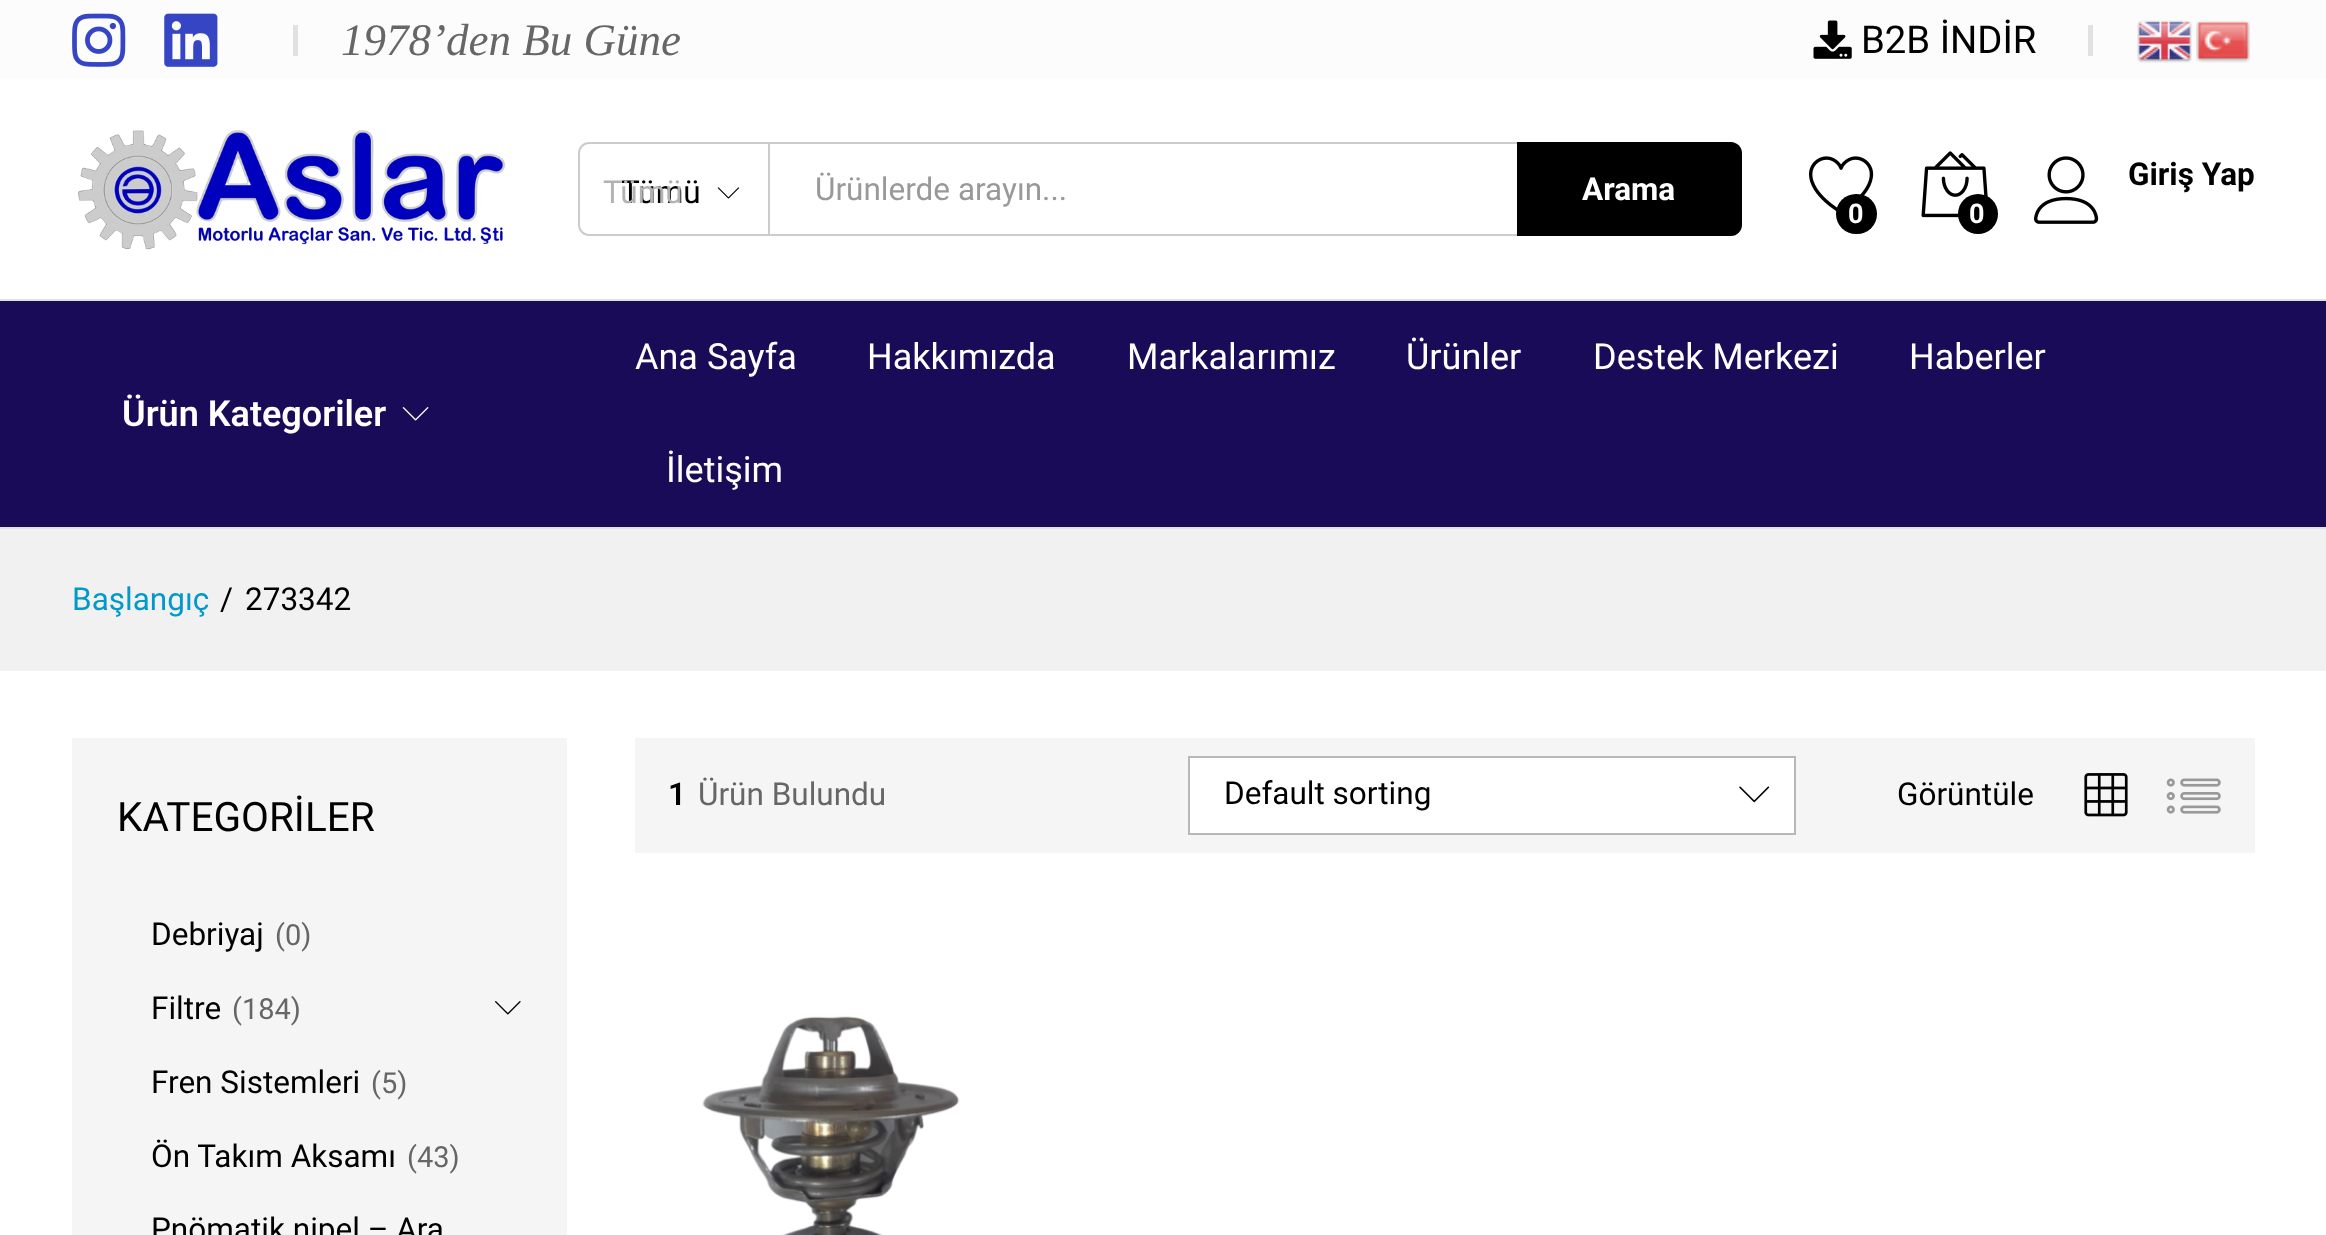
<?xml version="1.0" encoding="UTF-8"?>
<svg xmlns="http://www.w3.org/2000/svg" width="2326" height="1235">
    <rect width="100%" height="100%" fill="#FFFFFF"/>
    <rect x="0" y="0" width="2326" height="79" fill="#FCFCFC"/>
    <image x="72" y="13" width="54" height="54" href="img_01.png"/>
    <image x="164" y="13" width="54" height="54" href="img_02.png"/>
    <rect x="293" y="25" width="5" height="31" fill="#E1E1E1"/>
    <text x="341" y="55" font-family="Liberation Serif" font-size="45" font-style="italic" fill="#666666">1978’den Bu Güne</text>
    <image x="1813" y="20" width="39" height="39" href="img_03.png"/>
    <text x="1861" y="53" font-family="Roboto" font-size="38.25" fill="#000000">B2B İNDİR</text>
    <rect x="2088" y="25" width="5" height="31" fill="#E1E1E1"/>
    <image x="2137" y="20" width="55" height="43" href="img_04.png"/>
    <image x="2196" y="20" width="54" height="43" href="img_05.png"/>
    <image x="78" y="130" width="428" height="120" href="img_06.png"/>
    <path d="M 589 143 H 769 V 235 H 589 C 583.5 235 579 230.5 579 225 V 153 C 579 147.5 583.5 143 589 143 Z" fill="none" stroke="#CCCCCC" stroke-width="2"/>
    <text x="621" y="203" font-family="Roboto" font-size="31.5" fill="#000000">Tümü</text>
    <text x="603" y="203" font-family="Roboto" font-size="31.5" fill="#B2B2B2">Tümü</text>
    <image x="717" y="187" width="23" height="12" href="img_07.png"/>
    <rect x="770" y="142" width="747" height="2" fill="#CCCCCC"/>
    <rect x="770" y="234" width="747" height="2" fill="#CCCCCC"/>
    <text x="815" y="200" font-family="Roboto" font-size="31.5" fill="#999999">Ürünlerde arayın...</text>
    <path d="M 1517 142 H 1731 C 1737 142 1742 147 1742 153 V 225 C 1742 231 1737 236 1731 236 H 1517 Z" fill="#000000"/>
    <text x="1582" y="200" font-family="Roboto" font-size="31.5" font-weight="700" fill="#FFFFFF">Arama</text>
    <image x="2034" y="156" width="65" height="68" href="img_08.png"/>
    <text x="2128" y="185" font-family="Roboto" font-size="31.5" font-weight="700" fill="#000000">Giriş Yap</text>
    <image x="1809" y="156" width="65" height="56" href="img_09.png"/>
    <rect x="1836" y="194" width="41" height="40" rx="20" fill="#000000"/>
    <text x="1848" y="223" font-family="Roboto" font-size="27" font-weight="700" fill="#FFFFFF">0</text>
    <image x="1921" y="151" width="67" height="67" href="img_10.png"/>
    <circle cx="1978" cy="214" r="20" fill="#000000"/>
    <text x="1969" y="223" font-family="Roboto" font-size="27" font-weight="700" fill="#FFFFFF">0</text>
    <rect x="0" y="301" width="2326" height="226" fill="#190B57"/>
    <rect x="0" y="299" width="2326" height="2" fill="#E1E1E1"/>
    <rect x="0" y="527" width="2326" height="2" fill="#E1E1E1"/>
    <text x="122" y="426" font-family="Roboto" font-size="36" font-weight="600" fill="#FFFFFF">Ürün Kategoriler</text>
    <image x="402" y="407" width="27" height="14" href="img_11.png"/>
    <text x="635" y="369" font-family="Roboto" font-size="36" fill="#FFFFFF">Ana Sayfa</text>
    <text x="867" y="369" font-family="Roboto" font-size="36" fill="#FFFFFF">Hakkımızda</text>
    <text x="1127" y="369" font-family="Roboto" font-size="36" fill="#FFFFFF">Markalarımız</text>
    <text x="1406" y="369" font-family="Roboto" font-size="36" fill="#FFFFFF">Ürünler</text>
    <text x="1593" y="369" font-family="Roboto" font-size="36" fill="#FFFFFF">Destek Merkezi</text>
    <text x="1909" y="369" font-family="Roboto" font-size="36" fill="#FFFFFF">Haberler</text>
    <text x="666" y="482" font-family="Roboto" font-size="36" fill="#FFFFFF">İletişim</text>
    <rect x="0" y="529" width="2326" height="142" fill="#F1F1F1"/>
    <text x="72" y="610" font-family="Roboto" font-size="31.5" fill="#0099CC">Başlangıç</text>
    <text x="220" y="610" font-family="Roboto" font-size="31.5" fill="#000000">/</text>
    <text x="245" y="610" font-family="Roboto" font-size="31.5" fill="#000000">273342</text>
    <rect x="72" y="738" width="495" height="497" fill="#F5F5F5"/>
    <text x="117" y="831" font-family="Roboto" font-size="40.5" fill="#000000">KATEGORİLER</text>
    <text x="151" y="945" font-family="Roboto" font-size="31.5" fill="#000000">Debriyaj</text>
    <text x="275" y="945" font-family="Roboto" font-size="29" fill="#666666">(0)</text>
    <text x="151" y="1019" font-family="Roboto" font-size="31.5" fill="#000000">Filtre</text>
    <text x="232" y="1019" font-family="Roboto" font-size="29" fill="#666666">(184)</text>
    <image x="495" y="1001" width="26" height="14" href="img_12.png"/>
    <text x="151" y="1093" font-family="Roboto" font-size="31.5" fill="#000000">Fren Sistemleri</text>
    <text x="371" y="1093" font-family="Roboto" font-size="29" fill="#666666">(5)</text>
    <text x="151" y="1167" font-family="Roboto" font-size="31.5" fill="#000000">Ön Takım Aksamı</text>
    <text x="407" y="1167" font-family="Roboto" font-size="29" fill="#666666">(43)</text>
    <text x="151" y="1240" font-family="Roboto" font-size="31.5" fill="#000000">Pnömatik nipel – Ara</text>
    <rect x="635" y="738" width="1620" height="115" fill="#F5F5F5"/>
    <text x="668" y="805" font-family="Roboto" font-size="31.5" font-weight="600" fill="#000000">1</text>
    <text x="698" y="805" font-family="Roboto" font-size="31.5" fill="#666666">Ürün Bulundu</text>
    <rect x="1189" y="757" width="606" height="77" fill="#FFFFFF" stroke="#B8B8B8" stroke-width="2"/>
    <text x="1224" y="804" font-family="Roboto" font-size="31.5" fill="#000000">Default sorting</text>
    <image x="1739" y="786" width="31" height="17" href="img_13.png"/>
    <text x="1897" y="805" font-family="Roboto" font-size="31.5" fill="#000000">Görüntüle</text>
    <image x="2084" y="773" width="44" height="44" href="img_14.png"/>
    <image x="2166" y="778" width="55" height="36" href="img_15.png"/>
    <image x="702" y="1016" width="258" height="219" href="img_16.png"/>
</svg>
